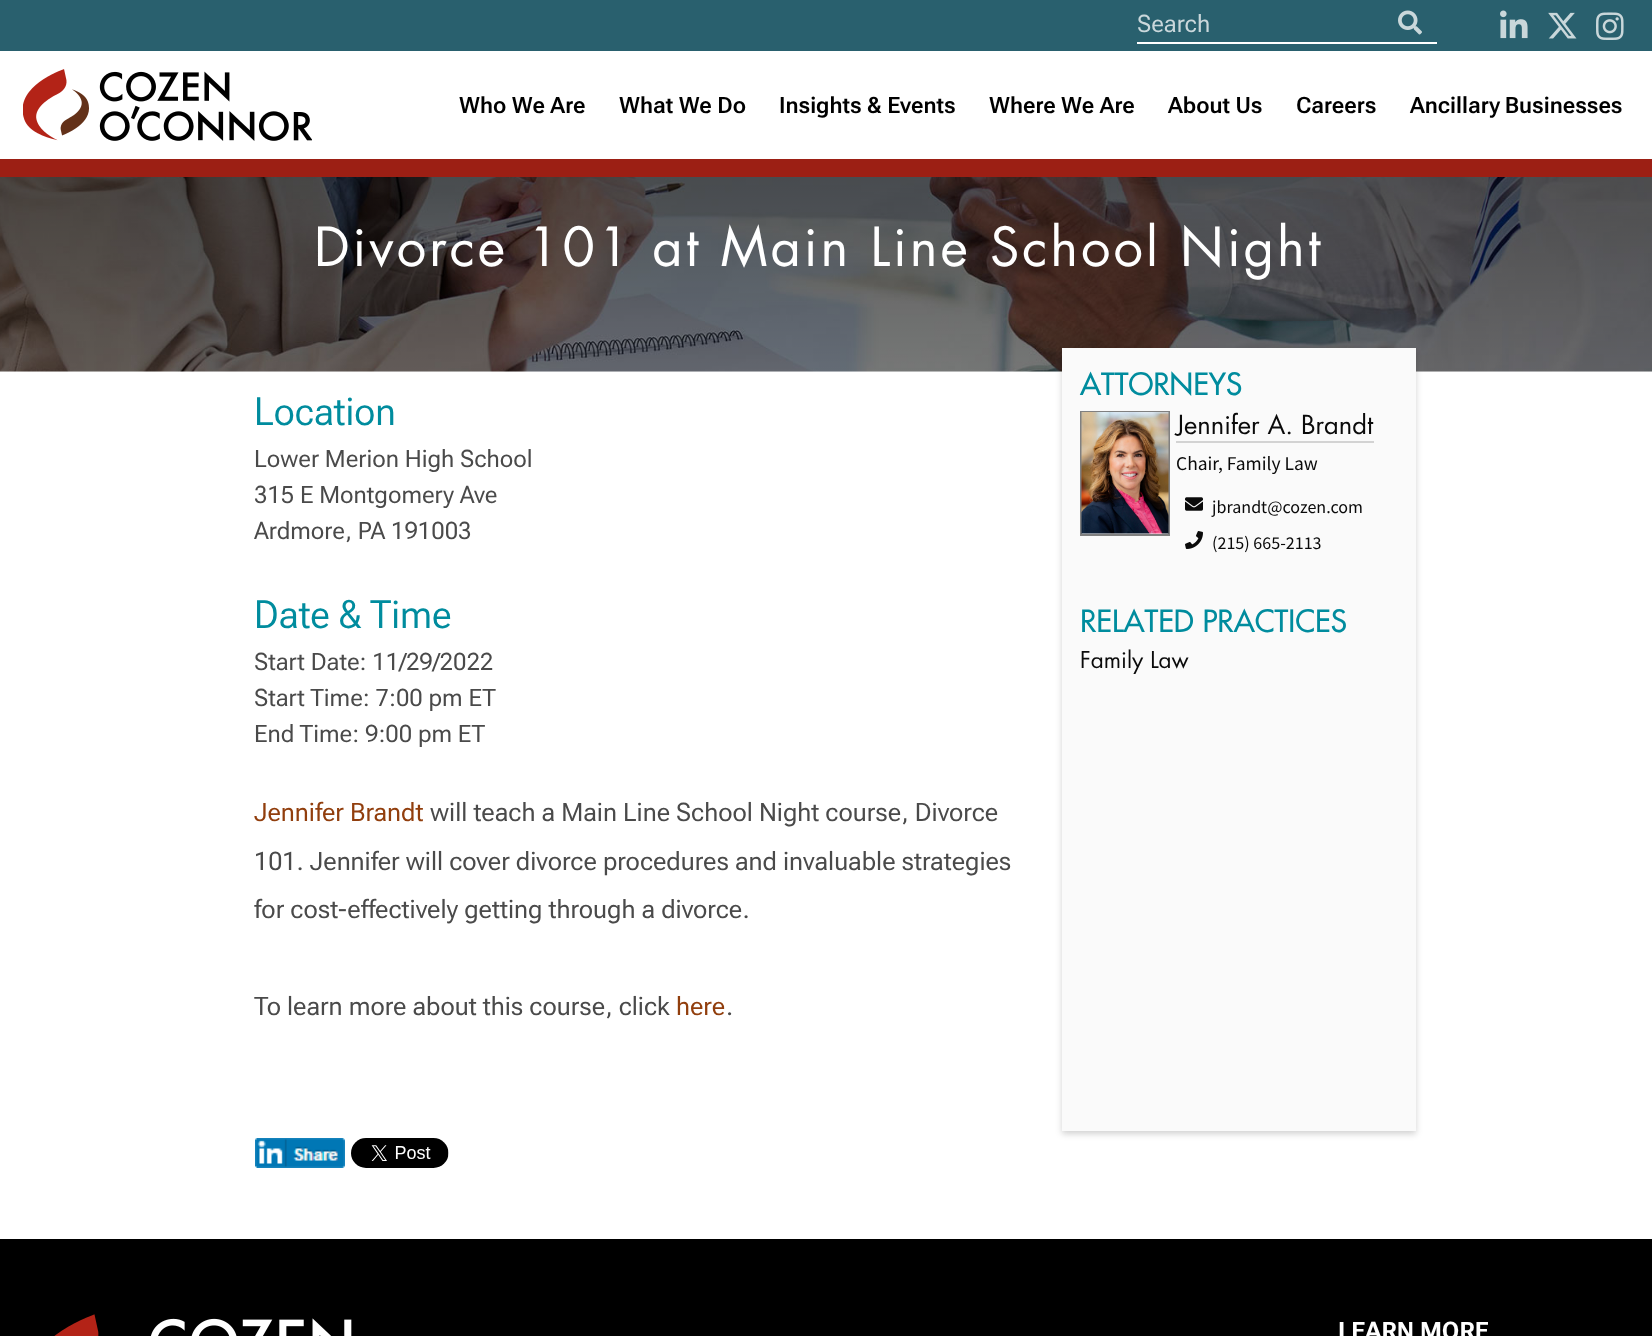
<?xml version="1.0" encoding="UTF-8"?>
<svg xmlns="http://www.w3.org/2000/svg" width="1652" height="1336">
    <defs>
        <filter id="blur1" x="-50%" y="-200%" width="200%" height="500%"><feGaussianBlur stdDeviation="3"/></filter>
    </defs>
    <rect width="100%" height="100%" fill="#FFFFFF"/>
    <rect x="0" y="159" width="1652" height="18" fill="#9C1F14"/>
    <rect x="0" y="0" width="1652" height="51" fill="#29606E"/>
    <rect x="1137" y="42" width="300" height="2" fill="#FFFFFF"/>
    <text x="1137" y="32" font-family="'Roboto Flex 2'" font-size="24" fill="#CAD7DB">Search</text>
    <image x="1398" y="10" width="24" height="25" href="img_01.png"/>
    <image x="1500" y="10" width="28" height="29" href="img_02.png"/>
    <image x="1548" y="12" width="29" height="27" href="img_03.png"/>
    <image x="1596" y="12" width="28" height="28" href="img_04.png"/>
    <image x="23" y="69" width="289" height="72" href="img_05.png"/>
    <text x="459" y="113" font-family="Roboto Flex" font-size="22.5" font-weight="600" fill="#000000">Who We Are</text>
    <text x="619" y="113" font-family="Roboto Flex" font-size="22.5" font-weight="600" fill="#000000">What We Do</text>
    <text x="779" y="113" font-family="Roboto Flex" font-size="22.5" font-weight="600" fill="#000000">Insights &amp; Events</text>
    <text x="989" y="113" font-family="Roboto Flex" font-size="22.5" font-weight="600" fill="#000000">Where We Are</text>
    <text x="1168" y="113" font-family="Roboto Flex" font-size="22.5" font-weight="600" fill="#000000">About Us</text>
    <text x="1296" y="113" font-family="Roboto Flex" font-size="22.5" font-weight="600" fill="#000000">Careers</text>
    <text x="1410" y="113" word-spacing="-1" font-family="Roboto Flex" font-size="22.5" font-weight="600" fill="#000000">Ancillary Businesses</text>
    <image x="0" y="177" width="1652" height="195" href="img_06.png"/>
    <text x="314" y="266" font-family="Futura" font-size="52.5" letter-spacing="3" fill="#FFFFFF">Divorce 101 at Main Line School Night</text>
    <text x="254" y="425" font-family="Roboto Flex" font-size="39" fill="#008C9E">Location</text>
    <text font-family="'Roboto Flex 2'" font-size="24" fill="#4A4A4A">
        <tspan x="254" y="467">Lower Merion High School</tspan>
        <tspan x="254" y="503">315 E Montgomery Ave</tspan>
        <tspan x="254" y="539">Ardmore, PA 191003</tspan>
    </text>
    <text x="254" y="628" font-family="Roboto Flex" font-size="39" fill="#008C9E">Date &amp; Time</text>
    <text font-family="'Roboto Flex 2'" font-size="24" fill="#4A4A4A">
        <tspan x="254" y="670">Start Date: 11/29/2022</tspan>
        <tspan x="254" y="706">Start Time: 7:00 pm ET</tspan>
        <tspan x="254" y="742">End Time: 9:00 pm ET</tspan>
    </text>
    <text x="254" y="821" font-family="'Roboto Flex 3'" font-size="25.5" fill="#913E0D">Jennifer Brandt</text>
    <text x="430" y="821" font-family="'Roboto Flex 3'" font-size="25.5" fill="#4A4A4A">will teach a Main Line School Night course, Divorce</text>
    <text font-family="'Roboto Flex 3'" font-size="25.5" fill="#4A4A4A">
        <tspan x="254" y="870">101. Jennifer will cover divorce procedures and invaluable strategies</tspan>
        <tspan x="254" y="918">for cost-effectively getting through a divorce.</tspan>
    </text>
    <text x="254" y="1015" font-family="'Roboto Flex 3'" font-size="25.5" fill="#4A4A4A">To learn more about this course, click</text>
    <text x="676" y="1015" font-family="'Roboto Flex 3'" font-size="25.5" fill="#913E0D">here</text>
    <text x="726" y="1015" font-family="'Roboto Flex 3'" font-size="25.5" fill="#4A4A4A">.</text>
    <image x="255" y="1138" width="90" height="30" href="img_07.png"/>
    <image x="351" y="1138" width="98" height="30" href="img_08.png"/>
    <rect x="1062" y="351" width="354" height="783" fill="#000000" fill-opacity="0.18" filter="url(#blur1)"/>
    <rect x="1062" y="348" width="354" height="783" fill="#FAFAFA"/>
    <text x="1080" y="395" font-family="'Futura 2'" font-size="30" fill="#008C9E">ATTORNEYS</text>
    <rect x="1081" y="412" width="88" height="123" fill="none" stroke="#808080" stroke-width="2"/>
    <image x="1081" y="412" width="88" height="122" href="img_09.png"/>
    <text x="1176" y="434" font-family="Futura" font-size="25.5" fill="#0A0A0A">Jennifer A. Brandt</text>
    <rect x="1176" y="441" width="198" height="2" fill="#D3D3D3"/>
    <text x="1176" y="470" font-family="Source Sans Pro" font-size="19.5" fill="#0A0A0A">Chair, Family Law</text>
    <image x="1185" y="497" width="18" height="14" href="img_10.png"/>
    <text x="1212" y="513" font-family="Source Sans Pro" font-size="18" fill="#0A0A0A">jbrandt@cozen.com</text>
    <image x="1185" y="531" width="18" height="18" href="img_11.png"/>
    <text x="1212" y="549" font-family="Source Sans Pro" font-size="18" fill="#0A0A0A">(215) 665-2113</text>
    <text x="1080" y="632" font-family="'Futura 2'" font-size="30" fill="#008C9E">RELATED PRACTICES</text>
    <text x="1080" y="668" font-family="Futura" font-size="22.5" fill="#0A0A0A">Family Law</text>
    <rect x="0" y="1239" width="1652" height="97" fill="#000000"/>
    <image x="54" y="1314" width="298" height="22" href="img_12.png"/>
    <text x="1338" y="1339" font-family="Roboto Flex" font-size="24" font-weight="700" fill="#FFFFFF">LEARN MORE</text>
</svg>
